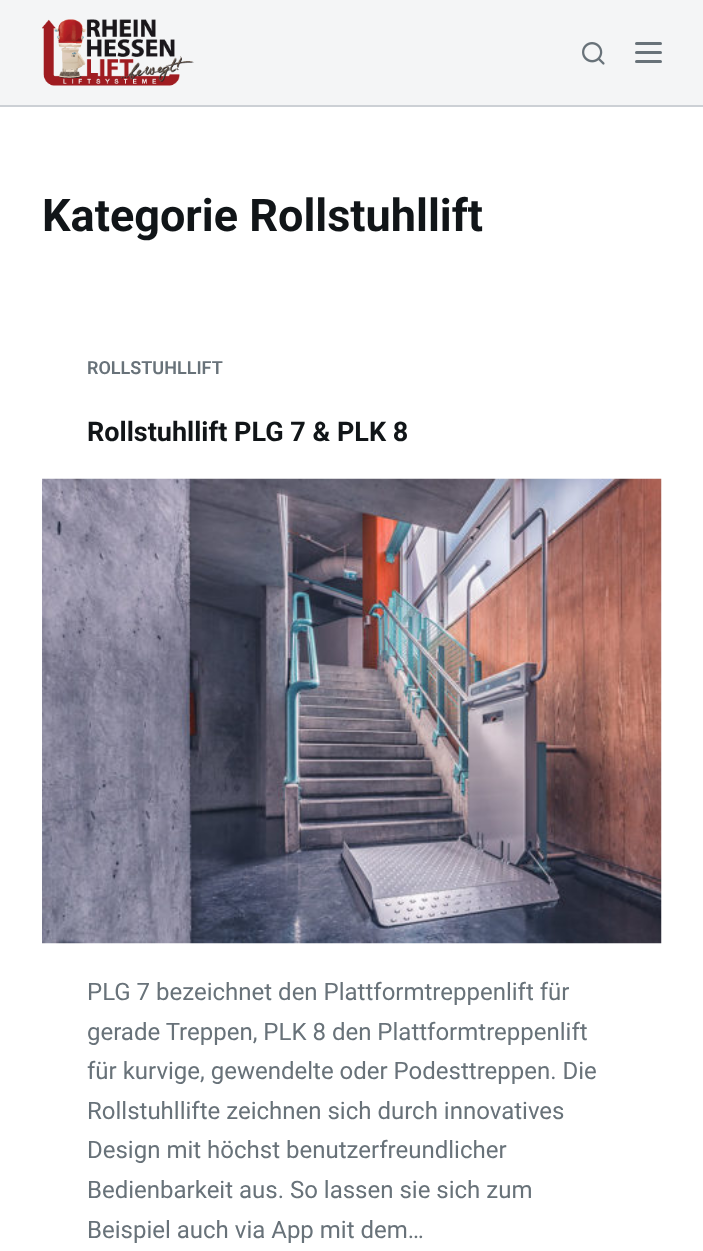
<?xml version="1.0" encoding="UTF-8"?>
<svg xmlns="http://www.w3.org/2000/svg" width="703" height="1251">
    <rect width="100%" height="100%" fill="#FFFFFF"/>
    <rect x="0" y="0" width="703" height="105" fill="#F4F5F6"/>
    <rect x="0" y="105" width="703" height="2" fill="#CCD0D5"/>
    <image x="42" y="19" width="152" height="67" href="img_01.png"/>
    <image x="582" y="42" width="23" height="23" href="img_02.png"/>
    <rect x="635" y="42" width="27" height="3" rx="1.5" fill="#687279"/>
    <rect x="635" y="51" width="27" height="3" rx="1.5" fill="#687279"/>
    <rect x="635" y="60" width="27" height="3" rx="1.5" fill="#687279"/>
    <text x="42" y="231" font-family="Roboto" font-size="45" font-weight="700" fill="#111518">Kategorie Rollstuhllift</text>
    <text x="87" y="374" font-family="Roboto" font-size="18" font-weight="600" fill="#687279">ROLLSTUHLLIFT</text>
    <text x="87" y="441" font-family="Roboto" font-size="27" font-weight="700" fill="#111518">Rollstuhllift PLG 7 &amp; PLK 8</text>
    <image x="42" y="478" width="620" height="466" href="img_03.png"/>
    <text font-family="Roboto" font-size="24" fill="#687279">
        <tspan x="87" y="1000">PLG 7 bezeichnet den Plattformtreppenlift für</tspan>
        <tspan x="87" y="1040">gerade Treppen, PLK 8 den Plattformtreppenlift</tspan>
        <tspan x="87" y="1079">für kurvige, gewendelte oder Podesttreppen. Die</tspan>
        <tspan x="87" y="1119">Rollstuhllifte zeichnen sich durch innovatives</tspan>
        <tspan x="87" y="1158">Design mit höchst benutzerfreundlicher</tspan>
        <tspan x="87" y="1198">Bedienbarkeit aus. So lassen sie sich zum</tspan>
        <tspan x="87" y="1238">Beispiel auch via App mit dem…</tspan>
    </text>
</svg>
